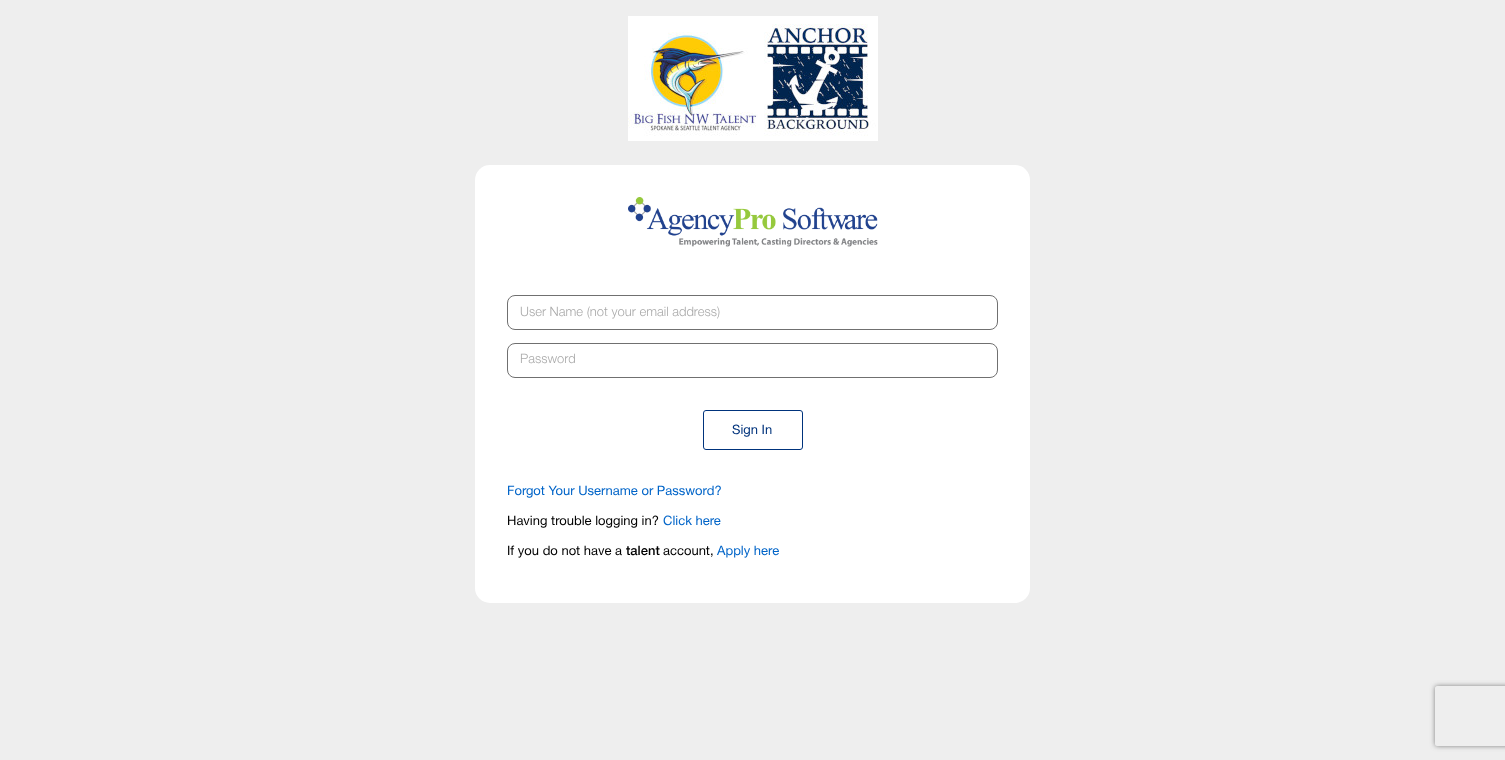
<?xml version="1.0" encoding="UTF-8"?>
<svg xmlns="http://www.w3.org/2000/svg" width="1505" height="760">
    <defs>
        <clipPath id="clip1"><path d="M 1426 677 H 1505 V 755 H 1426 Z M 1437 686 H 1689 C 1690 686 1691 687 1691 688 V 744 C 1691 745 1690 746 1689 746 H 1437 C 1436 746 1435 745 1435 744 V 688 C 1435 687 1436 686 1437 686 Z" clip-rule="evenodd"/></clipPath>
        <filter id="blur1" x="-50%" y="-200%" width="200%" height="500%"><feGaussianBlur stdDeviation="2.5"/></filter>
    </defs>
    <rect width="100%" height="100%" fill="#EEEEEE"/>
    <image x="628" y="16" width="250" height="125" href="img_01.png"/>
    <rect x="475" y="165" width="555" height="438" rx="15" fill="#FFFFFF"/>
    <image x="628" y="197" width="250" height="50" href="img_02.png"/>
    <rect x="507.5" y="295.5" width="490" height="34" rx="7.5" fill="none" stroke="#707070"/>
    <text x="520" y="316" font-family="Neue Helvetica" font-size="13" font-weight="300" fill="#AAAAAA">User Name (not your email address)</text>
    <rect x="507.5" y="343.5" width="490" height="34" rx="7.5" fill="none" stroke="#707070"/>
    <text x="520" y="363" font-family="Neue Helvetica" font-size="13" font-weight="300" fill="#AAAAAA">Password</text>
    <rect x="703.5" y="410.5" width="99" height="39" rx="2.5" fill="none" stroke="#00337C"/>
    <text x="732" y="434" font-family="Neue Helvetica" font-size="13" fill="#00337C">Sign In</text>
    <text x="507" y="495" font-family="Neue Helvetica" font-size="13" fill="#0064C8">Forgot Your Username or Password?</text>
    <text x="507" y="525" font-family="Neue Helvetica" font-size="13" fill="#000000">Having trouble logging in?</text>
    <text x="663" y="525" font-family="Neue Helvetica" font-size="13" fill="#0064C8">Click here</text>
    <text x="507" y="555" font-family="Neue Helvetica" font-size="13" fill="#000000">If you do not have a</text>
    <text x="626" y="555" font-family="'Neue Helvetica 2'" font-size="13" fill="#000000">talent</text>
    <text x="663" y="555" font-family="Neue Helvetica" font-size="13" fill="#000000">account,</text>
    <text x="717" y="555" font-family="Neue Helvetica" font-size="13" fill="#0064C8">Apply here</text>
    <g clip-path="url(#clip1)">
        <rect x="1435" y="686" width="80" height="60" rx="2" fill="#808080" filter="url(#blur1)"/>
    </g>
</svg>
